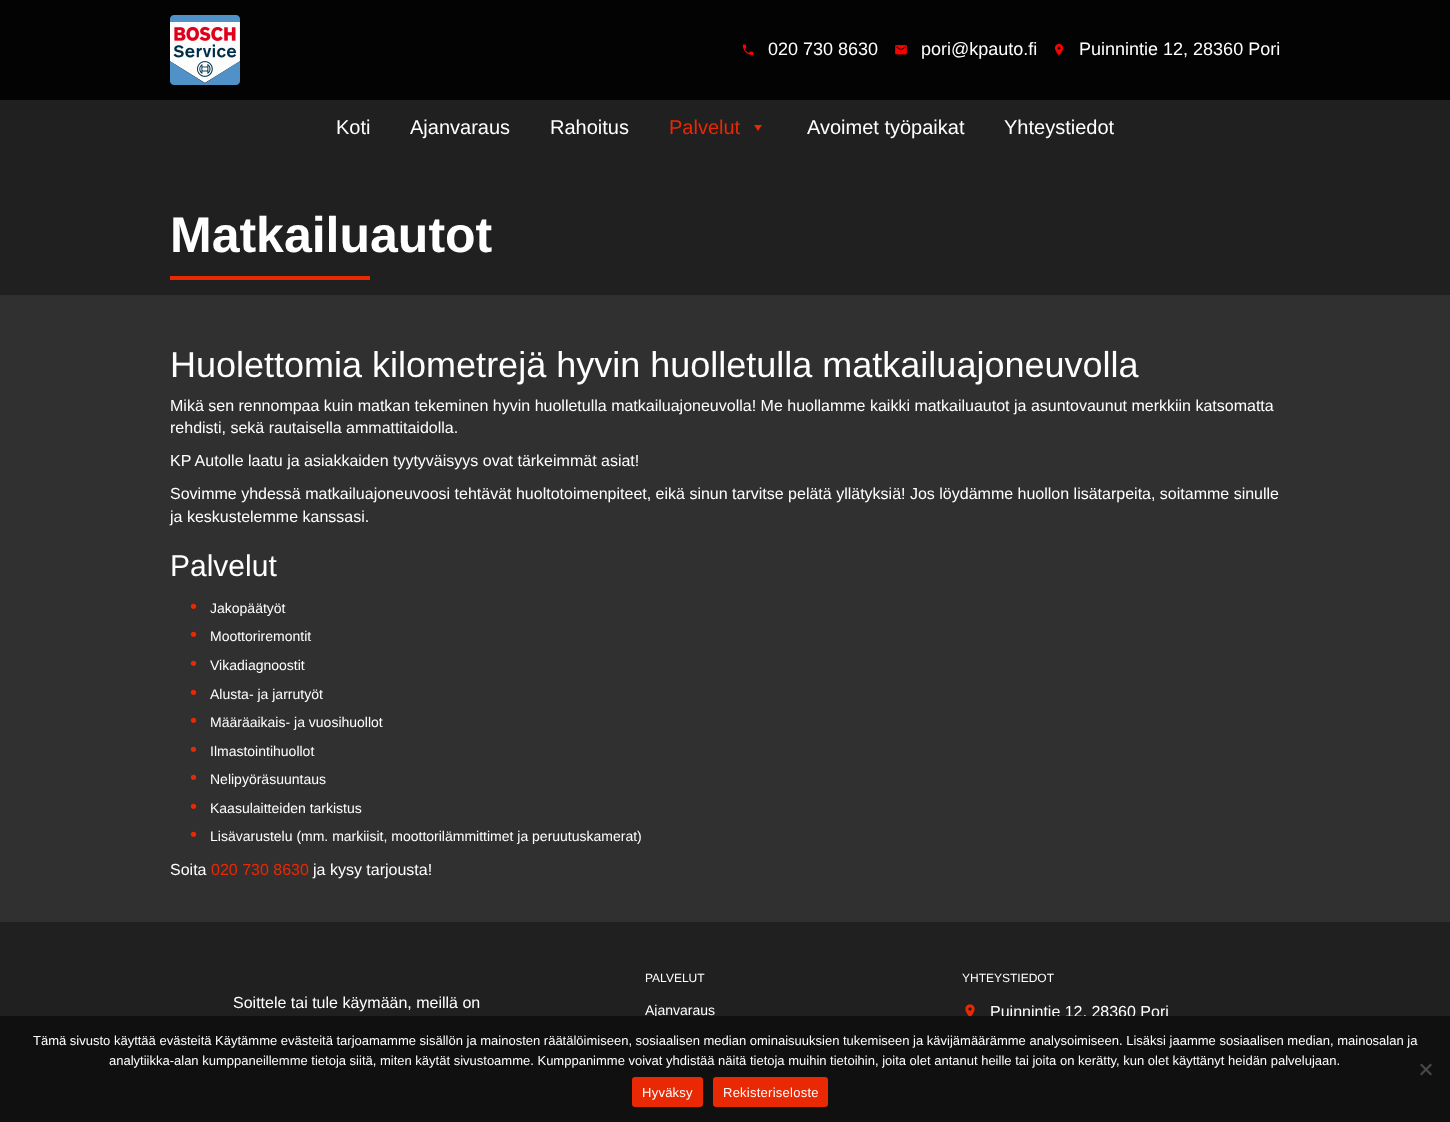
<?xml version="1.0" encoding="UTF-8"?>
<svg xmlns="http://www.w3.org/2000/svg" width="1450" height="1122">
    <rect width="100%" height="100%" fill="#202020"/>
    <rect x="0" y="0" width="1450" height="100" fill="#030303"/>
    <image x="170" y="15" width="70" height="70" href="img_01.png"/>
    <image x="742" y="44" width="12" height="11" href="img_02.png"/>
    <text x="768" y="55" font-family="Liberation Sans" font-size="18" fill="#FFFFFF">020 730 8630</text>
    <image x="895" y="45" width="12" height="10" href="img_03.png"/>
    <text x="921" y="55" font-family="Liberation Sans" font-size="18" fill="#FFFFFF">pori@kpauto.fi</text>
    <image x="1054" y="43" width="10" height="13" href="img_04.png"/>
    <text x="1079" y="55" font-family="Liberation Sans" font-size="18" fill="#FFFFFF">Puinnintie 12, 28360 Pori</text>
    <text x="336" y="134" font-family="Liberation Sans" font-size="20" fill="#FFFFFF">Koti</text>
    <text x="410" y="134" font-family="Liberation Sans" font-size="20" fill="#FFFFFF">Ajanvaraus</text>
    <text x="550" y="134" font-family="Liberation Sans" font-size="20" fill="#FFFFFF">Rahoitus</text>
    <text x="669" y="134" font-family="Liberation Sans" font-size="20" fill="#E92804">Palvelut</text>
    <path d="M 762 125 L 758 131 L 754 125 Z" fill="#E92804"/>
    <text x="807" y="134" font-family="Liberation Sans" font-size="20" fill="#FFFFFF">Avoimet työpaikat</text>
    <text x="1004" y="134" font-family="Liberation Sans" font-size="20" fill="#FFFFFF">Yhteystiedot</text>
    <text x="170" y="252" font-family="Liberation Sans" font-size="50" font-weight="700" fill="#FFFFFF">Matkailuautot</text>
    <rect x="170" y="276" width="200" height="4" fill="#E92804"/>
    <rect x="0" y="295" width="1450" height="627" fill="#303030"/>
    <text x="170" y="377" font-family="Liberation Sans" font-size="36" fill="#FFFFFF">Huolettomia kilometrejä hyvin huolletulla matkailuajoneuvolla</text>
    <text font-family="Liberation Sans" font-size="16" fill="#FFFFFF">
        <tspan x="170" y="411">Mikä sen rennompaa kuin matkan tekeminen hyvin huolletulla matkailuajoneuvolla! Me huollamme kaikki matkailuautot ja asuntovaunut merkkiin katsomatta</tspan>
        <tspan x="170" y="433">rehdisti, sekä rautaisella ammattitaidolla.</tspan>
    </text>
    <text x="170" y="466" font-family="Liberation Sans" font-size="16" fill="#FFFFFF">KP Autolle laatu ja asiakkaiden tyytyväisyys ovat tärkeimmät asiat!</text>
    <text font-family="Liberation Sans" font-size="16" fill="#FFFFFF">
        <tspan x="170" y="499">Sovimme yhdessä matkailuajoneuvoosi tehtävät huoltotoimenpiteet, eikä sinun tarvitse pelätä yllätyksiä! Jos löydämme huollon lisätarpeita, soitamme sinulle</tspan>
        <tspan x="170" y="522">ja keskustelemme kanssasi.</tspan>
    </text>
    <text x="170" y="576" font-family="Liberation Sans" font-size="30" fill="#FFFFFF">Palvelut</text>
    <text x="190" y="613" font-family="Liberation Sans" font-size="20" fill="#E92804">•</text>
    <text x="210" y="613" font-family="Liberation Sans" font-size="14" fill="#FFFFFF">Jakopäätyöt</text>
    <text x="190" y="641" font-family="Liberation Sans" font-size="20" fill="#E92804">•</text>
    <text x="210" y="641" font-family="Liberation Sans" font-size="14" fill="#FFFFFF">Moottoriremontit</text>
    <text x="190" y="670" font-family="Liberation Sans" font-size="20" fill="#E92804">•</text>
    <text x="210" y="670" font-family="Liberation Sans" font-size="14" fill="#FFFFFF">Vikadiagnoostit</text>
    <text x="190" y="699" font-family="Liberation Sans" font-size="20" fill="#E92804">•</text>
    <text x="210" y="699" font-family="Liberation Sans" font-size="14" fill="#FFFFFF">Alusta- ja jarrutyöt</text>
    <text x="190" y="727" font-family="Liberation Sans" font-size="20" fill="#E92804">•</text>
    <text x="210" y="727" font-family="Liberation Sans" font-size="14" fill="#FFFFFF">Määräaikais- ja vuosihuollot</text>
    <text x="190" y="756" font-family="Liberation Sans" font-size="20" fill="#E92804">•</text>
    <text x="210" y="756" font-family="Liberation Sans" font-size="14" fill="#FFFFFF">Ilmastointihuollot</text>
    <text x="190" y="784" font-family="Liberation Sans" font-size="20" fill="#E92804">•</text>
    <text x="210" y="784" font-family="Liberation Sans" font-size="14" fill="#FFFFFF">Nelipyöräsuuntaus</text>
    <text x="190" y="813" font-family="Liberation Sans" font-size="20" fill="#E92804">•</text>
    <text x="210" y="813" font-family="Liberation Sans" font-size="14" fill="#FFFFFF">Kaasulaitteiden tarkistus</text>
    <text x="190" y="841" font-family="Liberation Sans" font-size="20" fill="#E92804">•</text>
    <text x="210" y="841" font-family="Liberation Sans" font-size="14" fill="#FFFFFF">Lisävarustelu (mm. markiisit, moottorilämmittimet ja peruutuskamerat)</text>
    <text x="170" y="875" font-family="Liberation Sans" font-size="16" fill="#FFFFFF">Soita</text>
    <text x="211" y="875" font-family="Liberation Sans" font-size="16" fill="#E92804">020 730 8630</text>
    <text x="313" y="875" font-family="Liberation Sans" font-size="16" fill="#FFFFFF">ja kysy tarjousta!</text>
    <text x="233" y="1008" font-family="Liberation Sans" font-size="16" fill="#FFFFFF">Soittele tai tule käymään, meillä on</text>
    <text x="645" y="982" font-family="Liberation Sans" font-size="12" fill="#FFFFFF">PALVELUT</text>
    <text x="645" y="1015" font-family="Liberation Sans" font-size="14" fill="#FFFFFF">Ajanvaraus</text>
    <text x="962" y="982" font-family="Liberation Sans" font-size="12" fill="#FFFFFF">YHTEYSTIEDOT</text>
    <image x="965" y="1004" width="10" height="12" href="img_05.png"/>
    <text x="990" y="1017" font-family="Liberation Sans" font-size="16" fill="#FFFFFF">Puinnintie 12, 28360 Pori</text>
    <rect x="0" y="1016" width="1450" height="106" fill="#101010"/>
    <text x="33" y="1045" font-family="Liberation Sans" font-size="13" fill="#FFFFFF">Tämä sivusto käyttää evästeitä Käytämme evästeitä tarjoamamme sisällön ja mainosten räätälöimiseen, sosiaalisen median ominaisuuksien tukemiseen ja kävijämäärämme analysoimiseen. Lisäksi jaamme sosiaalisen median, mainosalan ja</text>
    <text x="109" y="1065" font-family="Liberation Sans" font-size="13" fill="#FFFFFF">analytiikka-alan kumppaneillemme tietoja siitä, miten käytät sivustoamme. Kumppanimme voivat yhdistää näitä tietoja muihin tietoihin, joita olet antanut heille tai joita on kerätty, kun olet käyttänyt heidän palvelujaan.</text>
    <path d="M 1430.5 1063.5 L 1432 1065 L 1421.5 1075.5 L 1420 1074 Z" fill="#484848"/>
    <path d="M 1420 1065 L 1421.5 1063.5 L 1432 1074 L 1430.5 1075.5 Z" fill="#484848"/>
    <rect x="632" y="1077" width="71" height="30" rx="3" fill="#E92804"/>
    <text x="642" y="1097" font-family="Liberation Sans" font-size="13" letter-spacing="0.25" fill="#FFFFFF">Hyväksy</text>
    <rect x="713" y="1077" width="115" height="30" rx="3" fill="#E92804"/>
    <text x="723" y="1097" font-family="Liberation Sans" font-size="13" letter-spacing="0.25" fill="#FFFFFF">Rekisteriseloste</text>
</svg>
